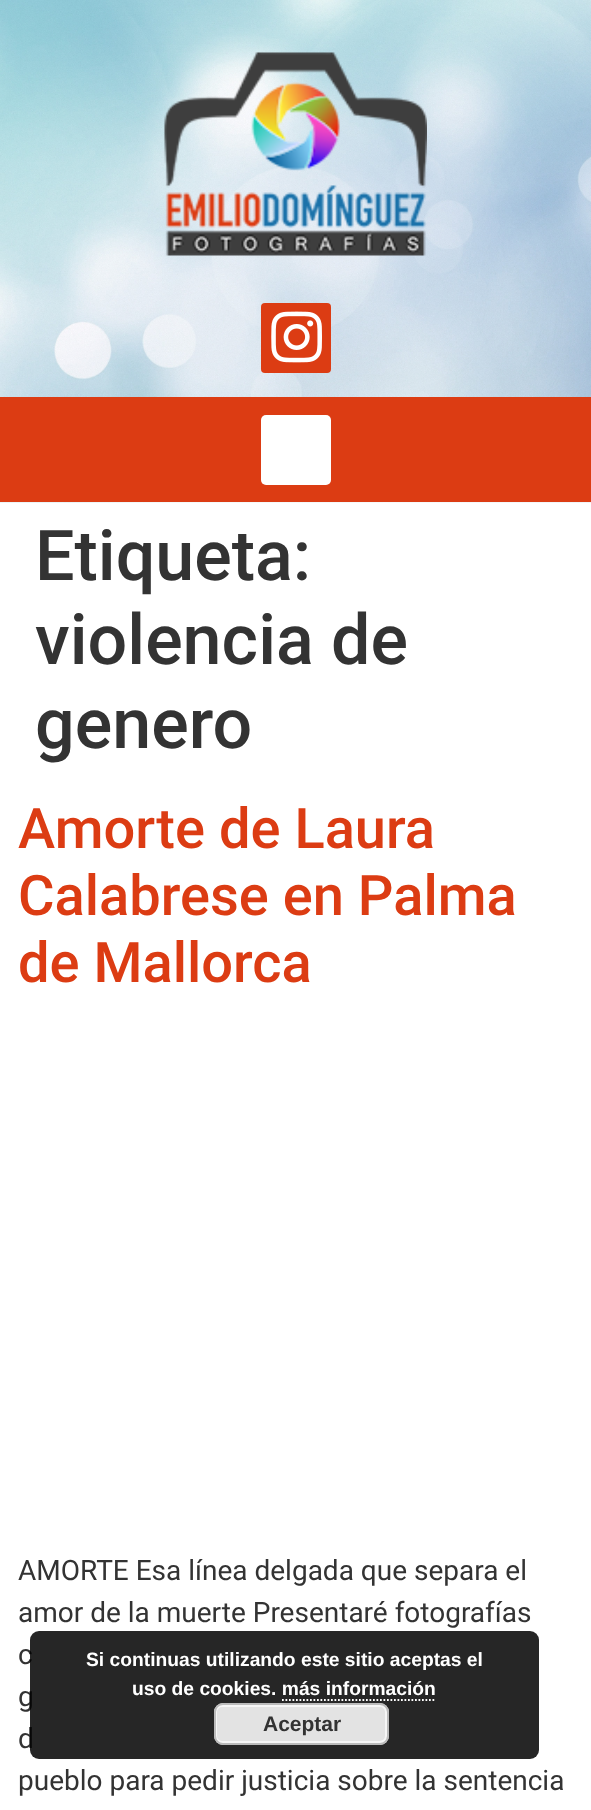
<?xml version="1.0" encoding="UTF-8"?>
<svg xmlns="http://www.w3.org/2000/svg" width="591" height="1810">
    <rect width="100%" height="100%" fill="#FFFFFF"/>
    <image x="0" y="0" width="591" height="503" href="img_01.png"/>
    <image x="164" y="52" width="263" height="204" href="img_02.png"/>
    <rect x="261" y="303" width="70" height="70" rx="4" fill="#DC3C13"/>
    <image x="271" y="311" width="51" height="52" href="img_03.png"/>
    <rect x="0" y="397" width="591" height="105" fill="#DC3C13"/>
    <rect x="261" y="415" width="70" height="70" rx="5" fill="#FFFFFF"/>
    <text font-family="Roboto" font-size="70" font-weight="500" fill="#333333">
        <tspan x="35" y="580">Etiqueta:</tspan>
        <tspan x="35" y="664">violencia de</tspan>
        <tspan x="35" y="748">genero</tspan>
    </text>
    <text font-family="Roboto" font-size="56" font-weight="500" fill="#DC3C13">
        <tspan x="18" y="848">Amorte de Laura</tspan>
        <tspan x="18" y="915">Calabrese en Palma</tspan>
        <tspan x="18" y="982">de Mallorca</tspan>
    </text>
    <text font-family="Roboto" font-size="28" fill="#333333">
        <tspan x="18" y="1580">AMORTE Esa línea delgada que separa el</tspan>
        <tspan x="18" y="1622">amor de la muerte Presentaré fotografías</tspan>
        <tspan x="18" y="1664">c</tspan>
        <tspan x="18" y="1706">g</tspan>
        <tspan x="18" y="1748">d</tspan>
        <tspan x="18" y="1790">pueblo para pedir justicia sobre la sentencia</tspan>
    </text>
    <rect x="30" y="1631" width="509" height="128" rx="9" fill="#000000" fill-opacity="0.85"/>
    <text x="86" y="1666" font-family="Liberation Sans" font-size="19.25" font-weight="700" fill="#FFFFFF">Si continuas utilizando este sitio aceptas el</text>
    <text x="132" y="1695" font-family="Liberation Sans" font-size="19.25" font-weight="700" fill="#FFFFFF">uso de cookies. más información</text>
    <path d="M 282 1700 H 436" fill="none" stroke="#FFFFFF" stroke-width="1.8" stroke-dasharray="1.75 1.75"/>
    <rect x="214" y="1703" width="175" height="42" rx="9" fill="#E3E3E3"/>
    <rect x="216" y="1706" width="170" height="36" rx="6" fill="none" stroke="#F6F6F6" stroke-width="2"/>
    <rect x="215" y="1704" width="173" height="40" rx="8" fill="none" stroke="#BBBBBB" stroke-width="2"/>
    <text x="263" y="1731" font-family="Liberation Sans" font-size="21" font-weight="700" fill="#333333">Aceptar</text>
</svg>
